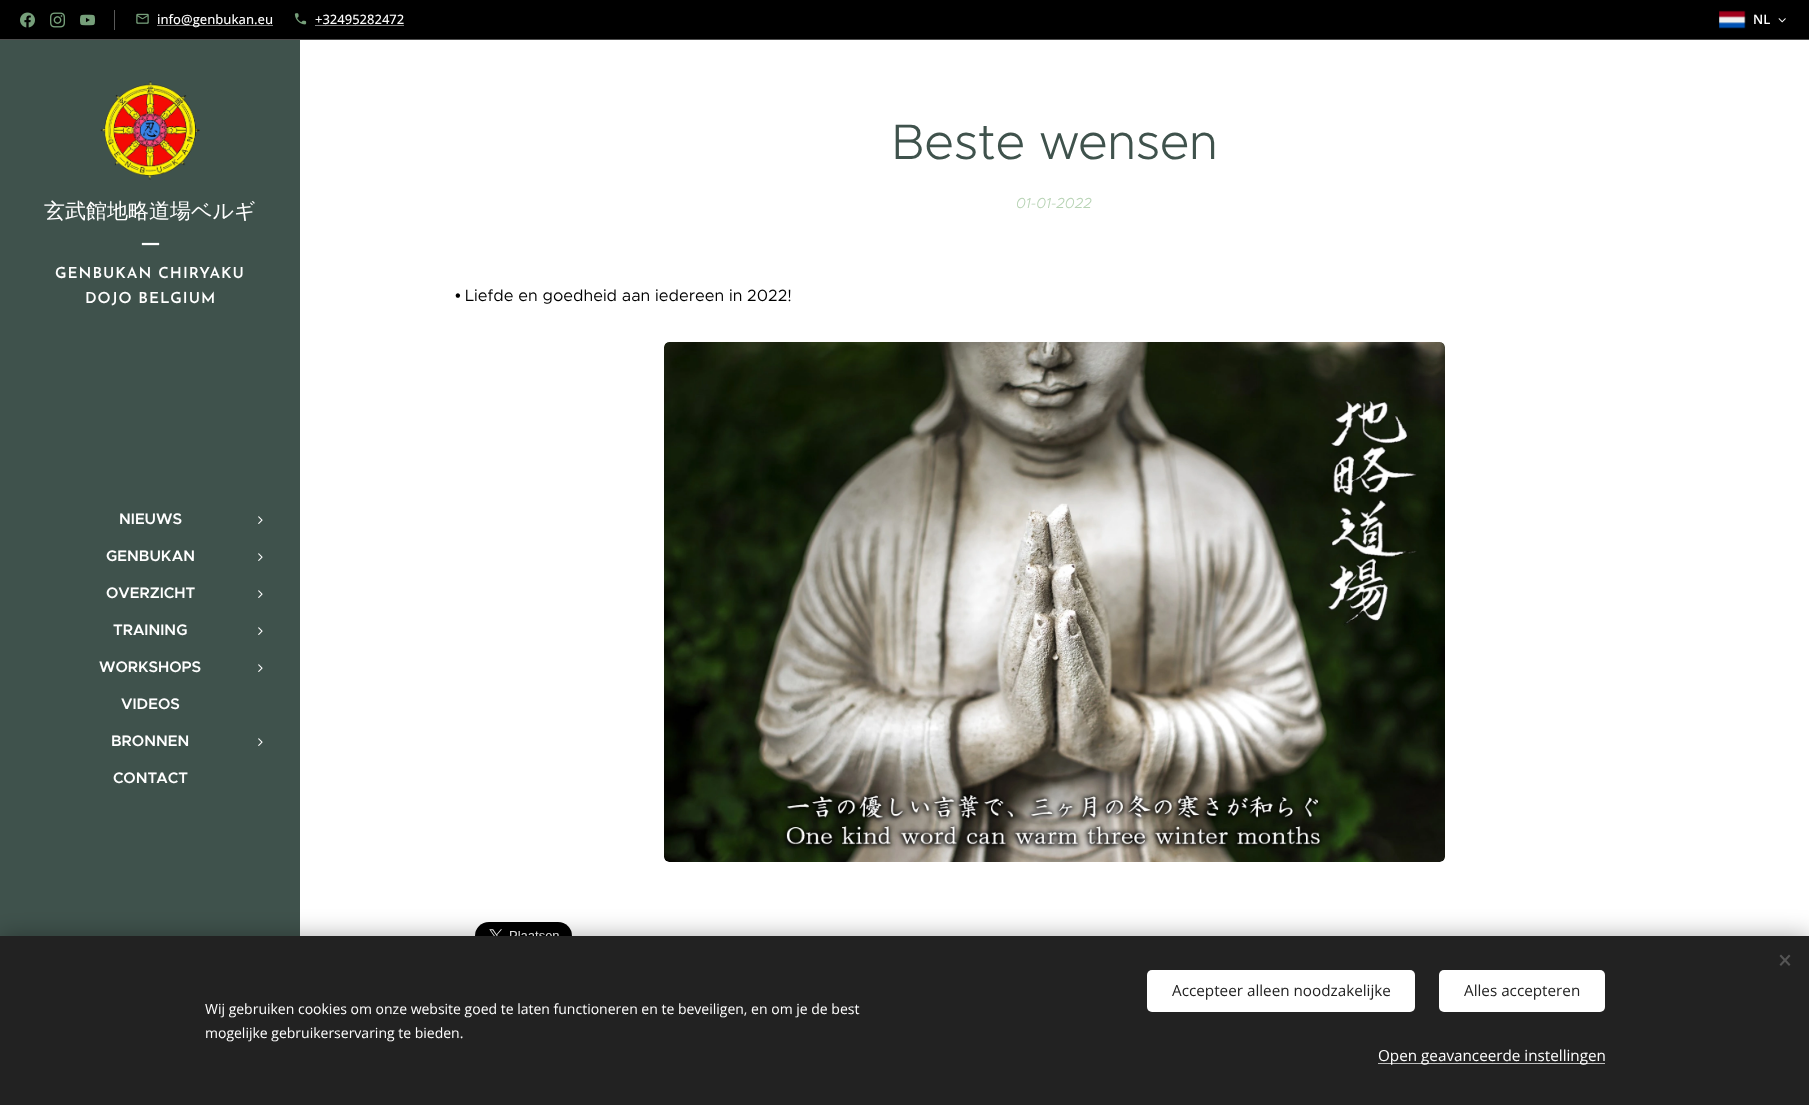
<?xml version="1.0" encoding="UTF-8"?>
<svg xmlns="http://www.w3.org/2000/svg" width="1809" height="1105">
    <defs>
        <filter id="blur1" x="-50%" y="-200%" width="200%" height="500%"><feGaussianBlur stdDeviation="12.5"/></filter>
    </defs>
    <rect width="100%" height="100%" fill="#FFFFFF"/>
    <rect x="0" y="0" width="1809" height="39" fill="#000000"/>
    <image x="20" y="12" width="15" height="16" href="img_01.png"/>
    <image x="50" y="12" width="15" height="16" href="img_02.png"/>
    <image x="80" y="14" width="15" height="12" href="img_03.png"/>
    <rect x="114" y="10" width="1" height="20" fill="#595959"/>
    <image x="136" y="13" width="13" height="11" href="img_04.png"/>
    <rect x="157" y="25" width="116" height="1" fill="#808080"/>
    <text x="157" y="24" font-family="Open Sans" font-size="13" font-weight="500" fill="#FFFFFF">info@genbukan.eu</text>
    <image x="294" y="13" width="13" height="12" href="img_05.png"/>
    <text x="315" y="24" font-family="Open Sans" font-size="13" font-weight="500" fill="#FFFFFF">+32495282472</text>
    <rect x="315" y="25" width="89" height="1" fill="#808080"/>
    <image x="1719" y="10" width="27" height="19" href="img_06.png"/>
    <text x="1753" y="24" font-family="Open Sans" font-size="13" font-weight="600" fill="#FFFFFF">NL</text>
    <image x="1778" y="18" width="8" height="5" href="img_07.png"/>
    <rect x="0" y="39" width="1809" height="1" fill="#4D4D4D"/>
    <rect x="0" y="40" width="300" height="896" fill="#3F524C"/>
    <image x="100" y="81" width="100" height="99" href="img_08.png"/>
    <text x="44" y="218" font-family="WenQuanYi Zen Hei" font-size="21" font-weight="500" fill="#FFFFFF">玄武館地略道場ベルギ</text>
    <text x="140" y="252" font-family="WenQuanYi Zen Hei" font-size="21" font-weight="500" fill="#FFFFFF">ー</text>
    <text x="55" y="278" font-family="Josefin Sans" font-size="15.25" font-weight="600" letter-spacing="1" fill="#FFFFFF">GENBUKAN CHIRYAKU</text>
    <text x="85" y="303" font-family="Josefin Sans" font-size="15.25" font-weight="600" letter-spacing="1" fill="#FFFFFF">DOJO BELGIUM</text>
    <text x="119" y="524" font-family="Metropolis" font-size="15.25" font-weight="600" fill="#FFFFFF">NIEUWS</text>
    <image x="258" y="516" width="5" height="8" href="img_09.png"/>
    <text x="106" y="561" font-family="Metropolis" font-size="15.25" font-weight="600" fill="#FFFFFF">GENBUKAN</text>
    <image x="258" y="553" width="5" height="8" href="img_09.png"/>
    <text x="106" y="598" font-family="Metropolis" font-size="15.25" font-weight="600" fill="#FFFFFF">OVERZICHT</text>
    <image x="258" y="590" width="5" height="8" href="img_09.png"/>
    <text x="113" y="635" font-family="Metropolis" font-size="15.25" font-weight="600" fill="#FFFFFF">TRAINING</text>
    <image x="258" y="627" width="5" height="8" href="img_09.png"/>
    <text x="99" y="672" font-family="Metropolis" font-size="15.25" font-weight="600" fill="#FFFFFF">WORKSHOPS</text>
    <image x="258" y="664" width="5" height="8" href="img_09.png"/>
    <text x="121" y="709" font-family="Metropolis" font-size="15.25" font-weight="600" fill="#FFFFFF">VIDEOS</text>
    <text x="111" y="746" font-family="Metropolis" font-size="15.25" font-weight="600" fill="#FFFFFF">BRONNEN</text>
    <image x="258" y="738" width="5" height="8" href="img_09.png"/>
    <text x="113" y="783" font-family="Metropolis" font-size="15.25" font-weight="600" fill="#FFFFFF">CONTACT</text>
    <text x="891" y="159" font-family="Metropolis" font-size="50" font-weight="300" letter-spacing="-0.5" fill="#3F524C">Beste wensen</text>
    <text x="1016" y="208" font-family="Metropolis" font-size="14.5" font-weight="300" font-style="italic" fill="#B7D3B4">01-01-2022</text>
    <text x="455" y="301" font-family="Liberation Sans" font-size="16.4" fill="#000000">•</text>
    <text x="465" y="301" font-family="Metropolis" font-size="16.4" fill="#000000">Liefde en goedheid aan iedereen in 2022!</text>
    <image x="664" y="342" width="781" height="520" href="img_10.png"/>
    <image x="475" y="922" width="97" height="14" href="img_11.png"/>
    <rect x="0" y="936" width="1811" height="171" fill="#000000" fill-opacity="0.33" filter="url(#blur1)"/>
    <rect x="0" y="936" width="1809" height="169" fill="#222222"/>
    <path d="M 1779.5 964.5 L 1789 954.5 L 1790.5 956 L 1781 966 Z" fill="#555555"/>
    <path d="M 1781 954.5 L 1790.5 964.5 L 1789 966 L 1779.5 956 Z" fill="#555555"/>
    <text font-family="Open Sans" font-size="14" fill="#FFFFFF">
        <tspan x="205" y="1014">Wij gebruiken cookies om onze website goed te laten functioneren en te beveiligen, en om je de best</tspan>
        <tspan x="205" y="1038">mogelijke gebruikerservaring te bieden.</tspan>
    </text>
    <rect x="1147" y="970" width="268" height="42" rx="5" fill="#FFFFFF"/>
    <text x="1172" y="996" font-family="Open Sans" font-size="15.25" fill="#222222">Accepteer alleen noodzakelijke</text>
    <rect x="1439" y="970" width="166" height="42" rx="5" fill="#FFFFFF"/>
    <text x="1464" y="996" font-family="Open Sans" font-size="15.25" fill="#222222">Alles accepteren</text>
    <rect x="1378" y="1063" width="227" height="1" fill="#BDBDBD"/>
    <text x="1378" y="1061" font-family="Open Sans" font-size="15.25" fill="#FFFFFF">Open geavanceerde instellingen</text>
</svg>
